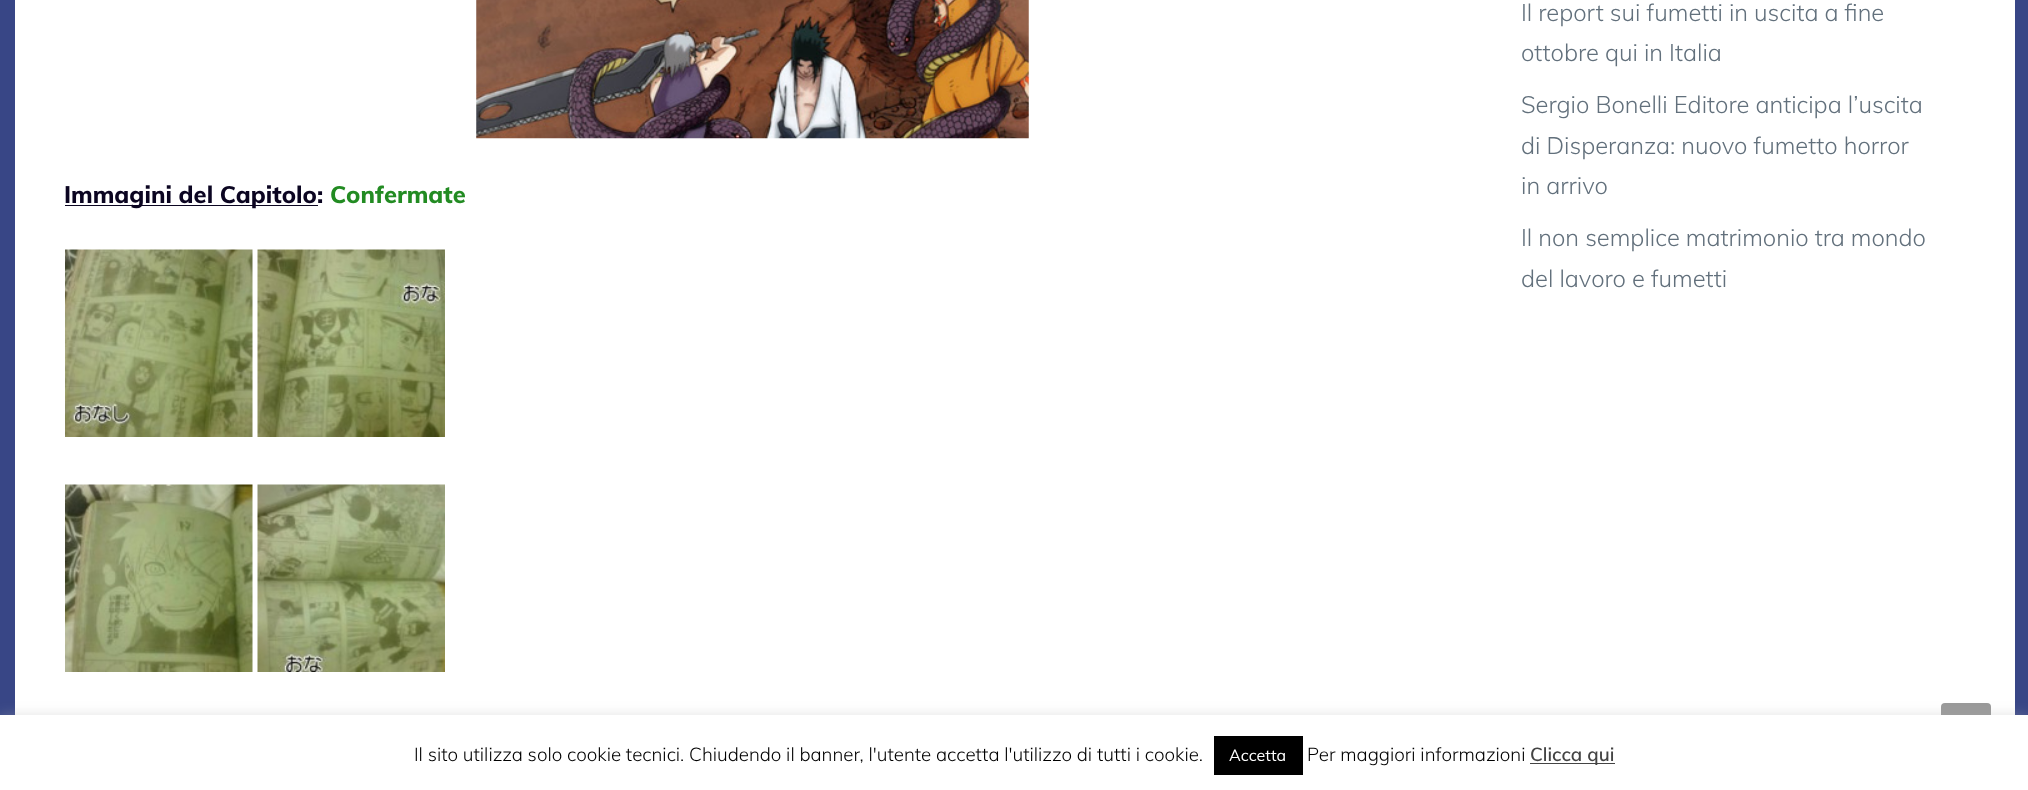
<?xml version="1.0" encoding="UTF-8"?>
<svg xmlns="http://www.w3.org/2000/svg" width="2028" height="790">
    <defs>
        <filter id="blur1" x="-50%" y="-200%" width="200%" height="500%"><feGaussianBlur stdDeviation="6"/></filter>
    </defs>
    <rect width="100%" height="100%" fill="#384686"/>
    <rect x="15" y="0" width="2000" height="715" fill="#FFFFFF"/>
    <image x="476" y="0" width="553" height="139" href="img_01.png"/>
    <rect x="65" y="205" width="253" height="1" fill="#0B0521"/>
    <text x="64" y="203" font-family="Muli" font-size="23.75" font-weight="800" fill="#0B0521">Immagini del Capitolo:</text>
    <text x="330" y="203" font-family="Muli" font-size="23.75" font-weight="800" fill="#228B22">Confermate</text>
    <image x="65" y="249" width="188" height="188" href="img_02.png"/>
    <image x="257" y="249" width="188" height="188" href="img_03.png"/>
    <image x="65" y="484" width="188" height="188" href="img_04.png"/>
    <image x="257" y="484" width="188" height="188" href="img_05.png"/>
    <text font-family="Muli" font-size="23.75" font-weight="300" fill="#62707C">
        <tspan x="1521" y="21">Il report sui fumetti in uscita a fine</tspan>
        <tspan x="1521" y="61">ottobre qui in Italia</tspan>
    </text>
    <text font-family="Muli" font-size="23.75" font-weight="300" fill="#62707C">
        <tspan x="1521" y="113">Sergio Bonelli Editore anticipa l’uscita</tspan>
        <tspan x="1521" y="154">di Disperanza: nuovo fumetto horror</tspan>
        <tspan x="1521" y="194">in arrivo</tspan>
    </text>
    <text font-family="Muli" font-size="23.75" font-weight="300" fill="#62707C">
        <tspan x="1521" y="246">Il non semplice matrimonio tra mondo</tspan>
        <tspan x="1521" y="287">del lavoro e fumetti</tspan>
    </text>
    <rect x="1941" y="703" width="50" height="50" rx="4" fill="#999999"/>
    <rect x="0" y="714" width="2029" height="75" fill="#ACABAB" fill-opacity="0.3" filter="url(#blur1)"/>
    <rect x="0" y="715" width="2028" height="75" fill="#FFFFFF"/>
    <text x="414" y="761" font-family="Muli" font-size="18.75" font-weight="300" fill="#000000">Il sito utilizza solo cookie tecnici. Chiudendo il banner, l'utente accetta l'utilizzo di tutti i cookie.</text>
    <rect x="1214" y="736" width="89" height="39" fill="#000000"/>
    <text x="1229" y="761" font-family="Muli" font-size="16" fill="#FFFFFF">Accetta</text>
    <text x="1307" y="761" font-family="Muli" font-size="18.75" font-weight="300" fill="#000000">Per maggiori informazioni</text>
    <rect x="1530" y="763" width="85" height="1" fill="#444444"/>
    <text x="1530" y="761" font-family="Muli" font-size="18.75" font-weight="600" fill="#444444">Clicca qui</text>
</svg>
